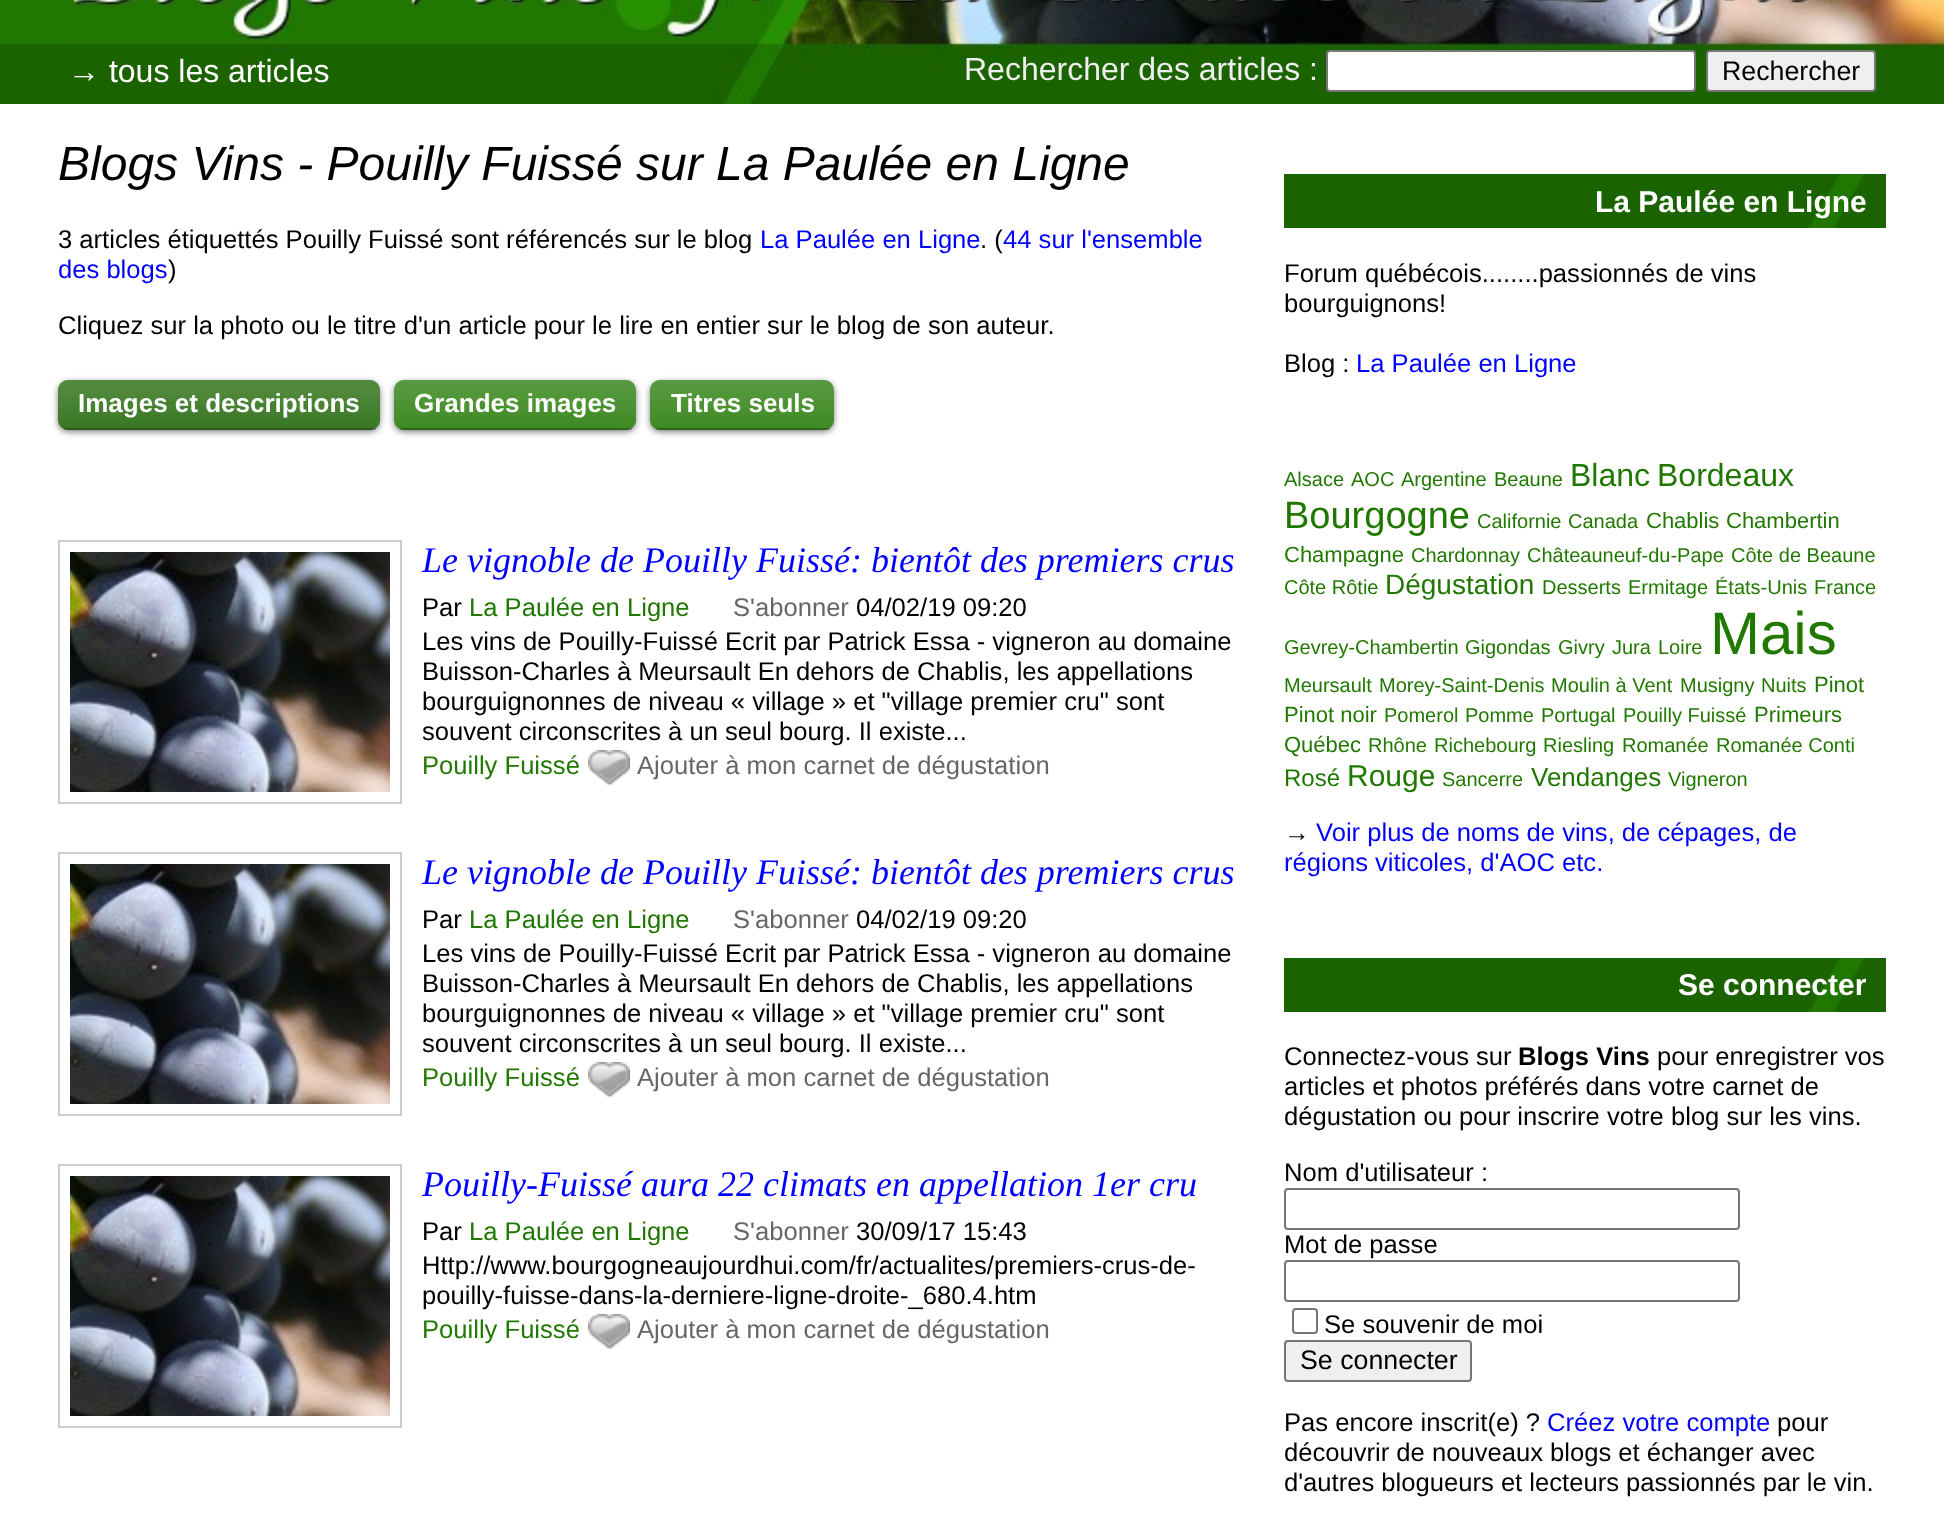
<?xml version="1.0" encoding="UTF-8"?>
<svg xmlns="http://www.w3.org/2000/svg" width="1944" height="1531">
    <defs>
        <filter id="blur1" x="-50%" y="-200%" width="200%" height="500%"><feGaussianBlur stdDeviation="3"/></filter>
    </defs>
    <rect width="100%" height="100%" fill="#FFFFFF"/>
    <image x="0" y="0" width="58" height="104" href="img_01.png"/>
    <image x="58" y="0" width="1886" height="104" href="img_02.png"/>
    <text x="68" y="82" font-family="Liberation Sans" font-size="32" fill="#FFFFFF">→ tous les articles</text>
    <text x="964" y="80" font-family="Liberation Sans" font-size="32" fill="#EEEEEE">Rechercher des articles :</text>
    <rect x="1327" y="51" width="368" height="40" rx="3" fill="#FFFFFF" stroke="#767676" stroke-width="2"/>
    <rect x="1707" y="51" width="168" height="40" rx="3" fill="#EFEFEF" stroke="#767676" stroke-width="2"/>
    <text x="1722" y="80" font-family="Liberation Sans" font-size="26.75" fill="#000000">Rechercher</text>
    <text x="58" y="180" font-family="Liberation Sans" font-size="48" font-style="italic" fill="#000000">Blogs Vins - Pouilly Fuissé sur La Paulée en Ligne</text>
    <text x="58" y="248" font-family="Liberation Sans" font-size="25.6" fill="#000000">3 articles étiquettés Pouilly Fuissé sont référencés sur le blog</text>
    <text x="760" y="248" font-family="Liberation Sans" font-size="25.6" fill="#0000FF">La Paulée en Ligne</text>
    <text x="980" y="248" font-family="Liberation Sans" font-size="25.6" fill="#000000">. (</text>
    <text x="1003" y="248" font-family="Liberation Sans" font-size="25.6" fill="#0000FF">44 sur l'ensemble</text>
    <text x="58" y="278" font-family="Liberation Sans" font-size="25.6" fill="#0000FF">des blogs</text>
    <text x="168" y="278" font-family="Liberation Sans" font-size="25.6" fill="#000000">)</text>
    <text x="58" y="334" font-family="Liberation Sans" font-size="25.6" fill="#000000">Cliquez sur la photo ou le titre d'un article pour le lire en entier sur le blog de son auteur.</text>
    <rect x="58" y="382" width="322" height="50" rx="10" fill="#000000" fill-opacity="0.5" filter="url(#blur1)"/>
    <rect x="58" y="380" width="322" height="50" rx="10" fill="#1A6300"/>
    <image x="58" y="380" width="322" height="50" href="img_03.png"/>
    <rect x="64" y="428" width="312" height="2" fill="#000000" fill-opacity="0.25"/>
    <text x="78" y="412" font-family="Liberation Sans" font-size="26" font-weight="700" fill="#FFFFFF">Images et descriptions</text>
    <rect x="394" y="382" width="242" height="50" rx="10" fill="#000000" fill-opacity="0.5" filter="url(#blur1)"/>
    <rect x="394" y="380" width="242" height="50" rx="10" fill="#207800"/>
    <image x="394" y="380" width="242" height="50" href="img_04.png"/>
    <rect x="400" y="428" width="232" height="2" fill="#000000" fill-opacity="0.25"/>
    <text x="414" y="412" font-family="Liberation Sans" font-size="26" font-weight="700" fill="#FFFFFF">Grandes images</text>
    <rect x="650" y="382" width="184" height="50" rx="10" fill="#000000" fill-opacity="0.5" filter="url(#blur1)"/>
    <rect x="650" y="380" width="184" height="50" rx="10" fill="#207800"/>
    <image x="650" y="380" width="184" height="50" href="img_05.png"/>
    <rect x="656" y="428" width="174" height="2" fill="#000000" fill-opacity="0.25"/>
    <text x="671" y="412" font-family="Liberation Sans" font-size="26" font-weight="700" fill="#FFFFFF">Titres seuls</text>
    <rect x="59" y="541" width="342" height="262" fill="none" stroke="#CCCCCC" stroke-width="2"/>
    <image x="70" y="552" width="320" height="240" href="img_06.png"/>
    <text x="422" y="572" font-family="Liberation Serif" font-size="36" font-style="italic" fill="#0000FF">Le vignoble de Pouilly Fuissé: bientôt des premiers crus</text>
    <text x="422" y="616" font-family="Liberation Sans" font-size="25.6" fill="#000000">Par</text>
    <text x="469" y="616" font-family="Liberation Sans" font-size="25.6" fill="#207800">La Paulée en Ligne</text>
    <text x="733" y="616" font-family="Liberation Sans" font-size="25.6" fill="#666666">S'abonner</text>
    <text x="856" y="616" font-family="Liberation Sans" font-size="25.6" fill="#000000">04/02/19 09:20</text>
    <text font-family="Liberation Sans" font-size="25.6" fill="#000000">
        <tspan x="422" y="650">Les vins de Pouilly-Fuissé Ecrit par Patrick Essa - vigneron au domaine</tspan>
        <tspan x="422" y="680">Buisson-Charles à Meursault En dehors de Chablis, les appellations</tspan>
        <tspan x="422" y="710">bourguignonnes de niveau « village » et "village premier cru" sont</tspan>
        <tspan x="422" y="740">souvent circonscrites à un seul bourg. Il existe...</tspan>
    </text>
    <text x="422" y="774" font-family="Liberation Sans" font-size="25.6" fill="#207800">Pouilly Fuissé</text>
    <image x="588" y="750" width="42" height="36" href="img_07.png"/>
    <text x="637" y="774" font-family="Liberation Sans" font-size="25.6" fill="#666666">Ajouter à mon carnet de dégustation</text>
    <rect x="59" y="853" width="342" height="262" fill="none" stroke="#CCCCCC" stroke-width="2"/>
    <image x="70" y="864" width="320" height="240" href="img_06.png"/>
    <text x="422" y="884" font-family="Liberation Serif" font-size="36" font-style="italic" fill="#0000FF">Le vignoble de Pouilly Fuissé: bientôt des premiers crus</text>
    <text x="422" y="928" font-family="Liberation Sans" font-size="25.6" fill="#000000">Par</text>
    <text x="469" y="928" font-family="Liberation Sans" font-size="25.6" fill="#207800">La Paulée en Ligne</text>
    <text x="733" y="928" font-family="Liberation Sans" font-size="25.6" fill="#666666">S'abonner</text>
    <text x="856" y="928" font-family="Liberation Sans" font-size="25.6" fill="#000000">04/02/19 09:20</text>
    <text font-family="Liberation Sans" font-size="25.6" fill="#000000">
        <tspan x="422" y="962">Les vins de Pouilly-Fuissé Ecrit par Patrick Essa - vigneron au domaine</tspan>
        <tspan x="422" y="992">Buisson-Charles à Meursault En dehors de Chablis, les appellations</tspan>
        <tspan x="422" y="1022">bourguignonnes de niveau « village » et "village premier cru" sont</tspan>
        <tspan x="422" y="1052">souvent circonscrites à un seul bourg. Il existe...</tspan>
    </text>
    <text x="422" y="1086" font-family="Liberation Sans" font-size="25.6" fill="#207800">Pouilly Fuissé</text>
    <image x="588" y="1062" width="42" height="36" href="img_07.png"/>
    <text x="637" y="1086" font-family="Liberation Sans" font-size="25.6" fill="#666666">Ajouter à mon carnet de dégustation</text>
    <rect x="59" y="1165" width="342" height="262" fill="none" stroke="#CCCCCC" stroke-width="2"/>
    <image x="70" y="1176" width="320" height="240" href="img_06.png"/>
    <text x="422" y="1196" font-family="Liberation Serif" font-size="36" font-style="italic" fill="#0000FF">Pouilly-Fuissé aura 22 climats en appellation 1er cru</text>
    <text x="422" y="1240" font-family="Liberation Sans" font-size="25.6" fill="#000000">Par</text>
    <text x="469" y="1240" font-family="Liberation Sans" font-size="25.6" fill="#207800">La Paulée en Ligne</text>
    <text x="733" y="1240" font-family="Liberation Sans" font-size="25.6" fill="#666666">S'abonner</text>
    <text x="856" y="1240" font-family="Liberation Sans" font-size="25.6" fill="#000000">30/09/17 15:43</text>
    <text font-family="Liberation Sans" font-size="25.6" fill="#000000">
        <tspan x="422" y="1274">Http://www.bourgogneaujourdhui.com/fr/actualites/premiers-crus-de-</tspan>
        <tspan x="422" y="1304">pouilly-fuisse-dans-la-derniere-ligne-droite-_680.4.htm</tspan>
    </text>
    <text x="422" y="1338" font-family="Liberation Sans" font-size="25.6" fill="#207800">Pouilly Fuissé</text>
    <image x="588" y="1314" width="42" height="36" href="img_07.png"/>
    <text x="637" y="1338" font-family="Liberation Sans" font-size="25.6" fill="#666666">Ajouter à mon carnet de dégustation</text>
    <rect x="1284" y="174" width="602" height="54" fill="#1A6300"/>
    <image x="1808" y="174" width="57" height="54" href="img_08.png"/>
    <text x="1595" y="212" font-family="Liberation Sans" font-size="30" font-weight="700" fill="#FFFFFF">La Paulée en Ligne</text>
    <text font-family="Liberation Sans" font-size="25.6" fill="#000000">
        <tspan x="1284" y="282">Forum québécois........passionnés de vins</tspan>
        <tspan x="1284" y="312">bourguignons!</tspan>
    </text>
    <text x="1284" y="372" font-family="Liberation Sans" font-size="25.6" fill="#000000">Blog :</text>
    <text x="1356" y="372" font-family="Liberation Sans" font-size="25.6" fill="#0000FF">La Paulée en Ligne</text>
    <text x="1284" y="486" font-family="Liberation Sans" font-size="20" fill="#207800">Alsace</text>
    <text x="1351" y="486" font-family="Liberation Sans" font-size="20" fill="#207800">AOC</text>
    <text x="1401" y="486" font-family="Liberation Sans" font-size="20" fill="#207800">Argentine</text>
    <text x="1494" y="486" font-family="Liberation Sans" font-size="20" fill="#207800">Beaune</text>
    <text x="1570" y="486" font-family="Liberation Sans" font-size="32" fill="#207800">Blanc</text>
    <text x="1657" y="486" font-family="Liberation Sans" font-size="32" fill="#207800">Bordeaux</text>
    <text x="1284" y="528" font-family="Liberation Sans" font-size="38" fill="#207800">Bourgogne</text>
    <text x="1477" y="528" font-family="Liberation Sans" font-size="20" fill="#207800">Californie</text>
    <text x="1568" y="528" font-family="Liberation Sans" font-size="20" fill="#207800">Canada</text>
    <text x="1646" y="528" font-family="Liberation Sans" font-size="22" fill="#207800">Chablis</text>
    <text x="1726" y="528" font-family="Liberation Sans" font-size="22" fill="#207800">Chambertin</text>
    <text x="1284" y="562" font-family="Liberation Sans" font-size="22" fill="#207800">Champagne</text>
    <text x="1411" y="562" font-family="Liberation Sans" font-size="20" fill="#207800">Chardonnay</text>
    <text x="1527" y="562" font-family="Liberation Sans" font-size="20" fill="#207800">Châteauneuf-du-Pape</text>
    <text x="1731" y="562" font-family="Liberation Sans" font-size="20" fill="#207800">Côte de Beaune</text>
    <text x="1284" y="594" font-family="Liberation Sans" font-size="20" fill="#207800">Côte Rôtie</text>
    <text x="1385" y="594" font-family="Liberation Sans" font-size="28" fill="#207800">Dégustation</text>
    <text x="1542" y="594" font-family="Liberation Sans" font-size="20" fill="#207800">Desserts</text>
    <text x="1628" y="594" font-family="Liberation Sans" font-size="20" fill="#207800">Ermitage</text>
    <text x="1715" y="594" font-family="Liberation Sans" font-size="20" fill="#207800">États-Unis</text>
    <text x="1814" y="594" font-family="Liberation Sans" font-size="20" fill="#207800">France</text>
    <text x="1284" y="654" font-family="Liberation Sans" font-size="20" fill="#207800">Gevrey-Chambertin</text>
    <text x="1465" y="654" font-family="Liberation Sans" font-size="20" fill="#207800">Gigondas</text>
    <text x="1558" y="654" font-family="Liberation Sans" font-size="20" fill="#207800">Givry</text>
    <text x="1612" y="654" font-family="Liberation Sans" font-size="20" fill="#207800">Jura</text>
    <text x="1658" y="654" font-family="Liberation Sans" font-size="20" fill="#207800">Loire</text>
    <text x="1710" y="654" font-family="Liberation Sans" font-size="60" fill="#207800">Mais</text>
    <text x="1284" y="692" font-family="Liberation Sans" font-size="20" fill="#207800">Meursault</text>
    <text x="1379" y="692" font-family="Liberation Sans" font-size="20" fill="#207800">Morey-Saint-Denis</text>
    <text x="1551" y="692" font-family="Liberation Sans" font-size="20" fill="#207800">Moulin à Vent</text>
    <text x="1680" y="692" font-family="Liberation Sans" font-size="20" fill="#207800">Musigny</text>
    <text x="1761" y="692" font-family="Liberation Sans" font-size="20" fill="#207800">Nuits</text>
    <text x="1814" y="692" font-family="Liberation Sans" font-size="22" fill="#207800">Pinot</text>
    <text x="1284" y="722" font-family="Liberation Sans" font-size="22" fill="#207800">Pinot noir</text>
    <text x="1384" y="722" font-family="Liberation Sans" font-size="20" fill="#207800">Pomerol</text>
    <text x="1465" y="722" font-family="Liberation Sans" font-size="20" fill="#207800">Pomme</text>
    <text x="1541" y="722" font-family="Liberation Sans" font-size="20" fill="#207800">Portugal</text>
    <text x="1623" y="722" font-family="Liberation Sans" font-size="20" fill="#207800">Pouilly Fuissé</text>
    <text x="1754" y="722" font-family="Liberation Sans" font-size="22" fill="#207800">Primeurs</text>
    <text x="1284" y="752" font-family="Liberation Sans" font-size="22" fill="#207800">Québec</text>
    <text x="1368" y="752" font-family="Liberation Sans" font-size="20" fill="#207800">Rhône</text>
    <text x="1434" y="752" font-family="Liberation Sans" font-size="20" fill="#207800">Richebourg</text>
    <text x="1543" y="752" font-family="Liberation Sans" font-size="20" fill="#207800">Riesling</text>
    <text x="1622" y="752" font-family="Liberation Sans" font-size="20" fill="#207800">Romanée</text>
    <text x="1716" y="752" font-family="Liberation Sans" font-size="20" fill="#207800">Romanée Conti</text>
    <text x="1284" y="786" font-family="Liberation Sans" font-size="24" fill="#207800">Rosé</text>
    <text x="1347" y="786" font-family="Liberation Sans" font-size="30" fill="#207800">Rouge</text>
    <text x="1442" y="786" font-family="Liberation Sans" font-size="20" fill="#207800">Sancerre</text>
    <text x="1531" y="786" font-family="Liberation Sans" font-size="26" fill="#207800">Vendanges</text>
    <text x="1668" y="786" font-family="Liberation Sans" font-size="20" fill="#207800">Vigneron</text>
    <text x="1284" y="841" font-family="Liberation Sans" font-size="25.6" fill="#000000">→</text>
    <text x="1316" y="841" font-family="Liberation Sans" font-size="25.6" fill="#0000FF">Voir plus de noms de vins, de cépages, de</text>
    <text x="1284" y="871" font-family="Liberation Sans" font-size="25.6" fill="#0000FF">régions viticoles, d'AOC etc.</text>
    <rect x="1284" y="958" width="602" height="54" fill="#1A6300"/>
    <image x="1808" y="958" width="57" height="54" href="img_08.png"/>
    <text x="1678" y="995" font-family="Liberation Sans" font-size="30" font-weight="700" fill="#FFFFFF">Se connecter</text>
    <text x="1284" y="1065" font-family="Liberation Sans" font-size="25.6" fill="#000000">Connectez-vous sur</text>
    <text x="1518" y="1065" font-family="Liberation Sans" font-size="25.6" font-weight="700" fill="#000000">Blogs Vins</text>
    <text x="1657" y="1065" font-family="Liberation Sans" font-size="25.6" fill="#000000">pour enregistrer vos</text>
    <text font-family="Liberation Sans" font-size="25.6" fill="#000000">
        <tspan x="1284" y="1095">articles et photos préférés dans votre carnet de</tspan>
        <tspan x="1284" y="1125">dégustation ou pour inscrire votre blog sur les vins.</tspan>
    </text>
    <text x="1284" y="1181" font-family="Liberation Sans" font-size="25.6" fill="#000000">Nom d'utilisateur :</text>
    <rect x="1285" y="1189" width="454" height="40" rx="3" fill="none" stroke="#767676" stroke-width="2"/>
    <text x="1284" y="1253" font-family="Liberation Sans" font-size="25.6" fill="#000000">Mot de passe</text>
    <rect x="1285" y="1261" width="454" height="40" rx="3" fill="none" stroke="#767676" stroke-width="2"/>
    <rect x="1293" y="1309" width="24" height="24" rx="3" fill="none" stroke="#767676" stroke-width="2"/>
    <text x="1324" y="1333" font-family="Liberation Sans" font-size="25.6" fill="#000000">Se souvenir de moi</text>
    <rect x="1285" y="1341" width="186" height="40" rx="3" fill="#EFEFEF" stroke="#767676" stroke-width="2"/>
    <text x="1300" y="1369" font-family="Liberation Sans" font-size="26.75" fill="#000000">Se connecter</text>
    <text x="1284" y="1431" font-family="Liberation Sans" font-size="25.6" fill="#000000">Pas encore inscrit(e) ?</text>
    <text x="1547" y="1431" font-family="Liberation Sans" font-size="25.6" fill="#0000FF">Créez votre compte</text>
    <text x="1777" y="1431" font-family="Liberation Sans" font-size="25.6" fill="#000000">pour</text>
    <text font-family="Liberation Sans" font-size="25.6" fill="#000000">
        <tspan x="1284" y="1461">découvrir de nouveaux blogs et échanger avec</tspan>
        <tspan x="1284" y="1491">d'autres blogueurs et lecteurs passionnés par le vin.</tspan>
    </text>
</svg>
